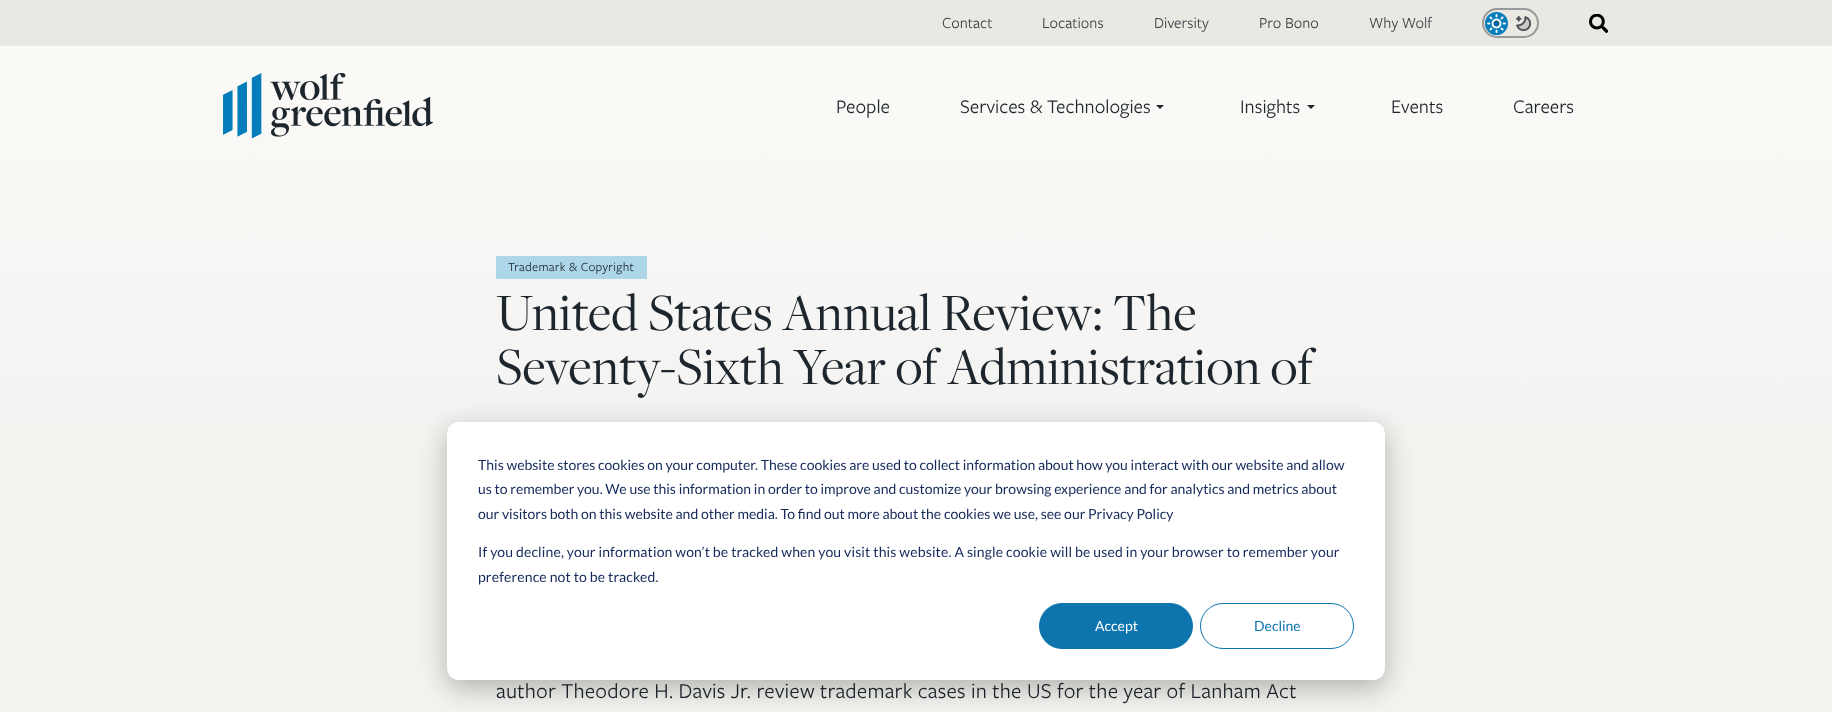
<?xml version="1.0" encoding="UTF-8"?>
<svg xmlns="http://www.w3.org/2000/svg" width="1832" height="712">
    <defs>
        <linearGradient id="g1" gradientUnits="userSpaceOnUse" x1="916" y1="527" x2="916" y2="0"><stop offset="0" stop-color="#F1F1F0"/><stop offset="1" stop-color="#FCFBF8"/></linearGradient>
        <filter id="blur1" x="-50%" y="-200%" width="200%" height="500%"><feGaussianBlur stdDeviation="14"/></filter>
    </defs>
    <rect width="100%" height="100%" fill="#F3F3EF"/>
    <rect x="0" y="0" width="1832" height="46" fill="#E9E8E2"/>
    <text x="942" y="28" font-family="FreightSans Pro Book" font-size="16" fill="#3C4248">Contact</text>
    <text x="1042" y="28" font-family="FreightSans Pro Book" font-size="16" fill="#3C4248">Locations</text>
    <text x="1154" y="28" font-family="FreightSans Pro Book" font-size="16" fill="#3C4248">Diversity</text>
    <text x="1259" y="28" font-family="FreightSans Pro Book" font-size="16" fill="#3C4248">Pro Bono</text>
    <text x="1369" y="28" font-family="FreightSans Pro Book" font-size="16" fill="#3C4248">Why Wolf</text>
    <rect x="1483" y="9" width="55" height="28" rx="14" fill="none" stroke="#979A9A" stroke-width="2"/>
    <circle cx="1496.5" cy="23.5" r="11.5" fill="#047DBA"/>
    <image x="1487" y="14" width="19" height="19" href="img_01.png"/>
    <image x="1515" y="16" width="17" height="16" href="img_02.png"/>
    <image x="1589" y="14" width="19" height="19" href="img_03.png"/>
    <rect x="0" y="46" width="1832" height="382" fill="url(#g1)"/>
    <image x="223" y="73" width="210" height="66" href="img_04.png"/>
    <text x="836" y="113" font-family="FreightSans Pro Book" font-size="20" fill="#1D252D">People</text>
    <text x="960" y="113" font-family="FreightSans Pro Book" font-size="20" fill="#1D252D">Services &amp; Technologies</text>
    <path d="M 1156 105 H 1164 L 1160 109 Z" fill="#1D252D"/>
    <text x="1240" y="113" font-family="FreightSans Pro Book" font-size="20" fill="#1D252D">Insights</text>
    <path d="M 1307 105 H 1315 L 1311 109 Z" fill="#1D252D"/>
    <text x="1391" y="113" font-family="FreightSans Pro Book" font-size="20" fill="#1D252D">Events</text>
    <text x="1513" y="113" font-family="FreightSans Pro Book" font-size="20" fill="#1D252D">Careers</text>
    <rect x="496" y="256" width="151" height="23" rx="1" fill="#ADD6E8"/>
    <text x="508" y="271" font-family="FreightSans Pro Book" font-size="13" letter-spacing="0.3" fill="#1D252D">Trademark &amp; Copyright</text>
    <text font-family="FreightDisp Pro" font-size="54.25" fill="#1D252D">
        <tspan x="496" y="330">United States Annual Review: The</tspan>
        <tspan x="496" y="384">Seventy-Sixth Year of Administration of</tspan>
    </text>
    <text x="496" y="698" font-family="FreightSans Pro Book" font-size="22" letter-spacing="0.22" fill="#1D252D">author Theodore H. Davis Jr. review trademark cases in the US for the year of Lanham Act</text>
    <rect x="447" y="430" width="938" height="258" rx="12" fill="#000000" fill-opacity="0.28" filter="url(#blur1)"/>
    <rect x="447" y="422" width="938" height="258" rx="12" fill="#FFFFFF"/>
    <text font-family="Lato" font-size="14" fill="#15295A">
        <tspan x="478" y="470">This website stores cookies on your computer. These cookies are used to collect information about how you interact with our website and allow</tspan>
        <tspan x="478" y="494">us to remember you. We use this information in order to improve and customize your browsing experience and for analytics and metrics about</tspan>
        <tspan x="478" y="519">our visitors both on this website and other media. To find out more about the cookies we use, see our Privacy Policy</tspan>
    </text>
    <text font-family="Lato" font-size="14" letter-spacing="0.14" fill="#15295A">
        <tspan x="478" y="557">If you decline, your information won’t be tracked when you visit this website. A single cookie will be used in your browser to remember your</tspan>
        <tspan x="478" y="582">preference not to be tracked.</tspan>
    </text>
    <rect x="1039.5" y="603.5" width="153" height="45" rx="22.5" fill="#0E74AE" stroke="#0E74AE"/>
    <text x="1095" y="631" font-family="Lato" font-size="14" fill="#FFFFFF">Accept</text>
    <rect x="1200.5" y="603.5" width="153" height="45" rx="22.5" fill="none" stroke="#0E74AE"/>
    <text x="1254" y="631" font-family="Lato" font-size="14" fill="#0E74AE">Decline</text>
</svg>
